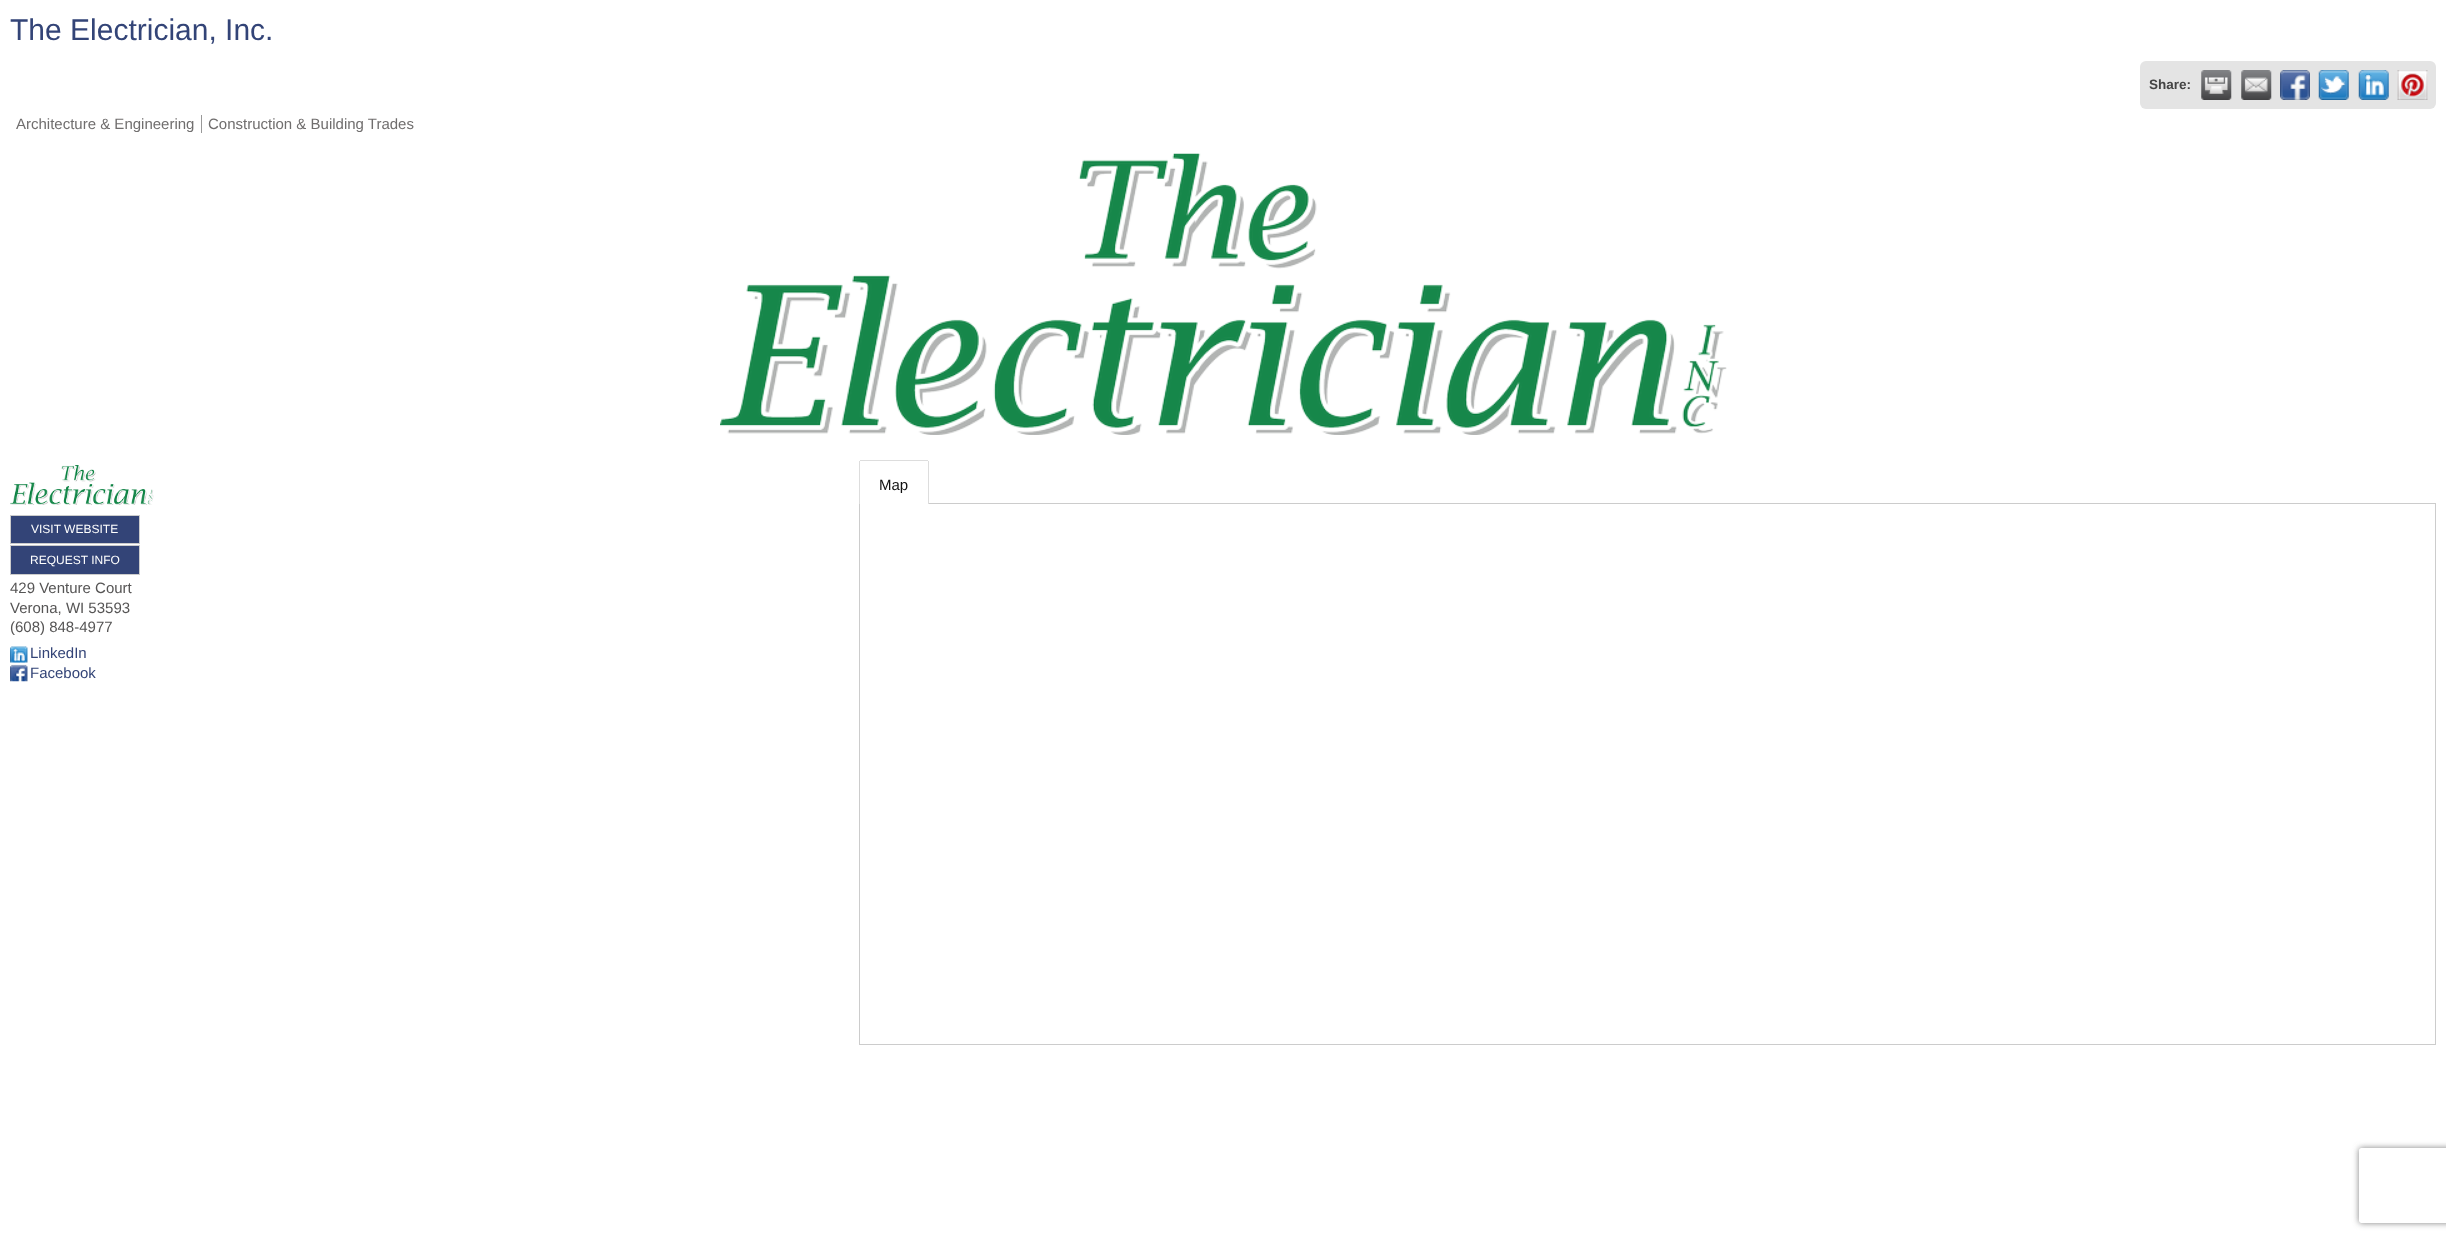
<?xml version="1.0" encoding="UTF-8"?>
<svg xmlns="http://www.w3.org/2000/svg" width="2446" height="1240">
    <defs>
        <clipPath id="clip1"><path d="M 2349 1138 H 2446 V 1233 H 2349 Z M 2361.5 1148 H 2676.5 C 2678 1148 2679 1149 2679 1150.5 V 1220.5 C 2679 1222 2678 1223 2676.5 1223 H 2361.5 C 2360 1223 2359 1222 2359 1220.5 V 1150.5 C 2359 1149 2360 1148 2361.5 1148 Z" clip-rule="evenodd"/></clipPath>
        <filter id="blur1" x="-50%" y="-200%" width="200%" height="500%"><feGaussianBlur stdDeviation="3"/></filter>
    </defs>
    <rect width="100%" height="100%" fill="#FFFFFF"/>
    <text x="10" y="40" font-family="Liberation Sans" font-size="30" fill="#334477">The Electrician, Inc.</text>
    <rect x="2140" y="61" width="296" height="48" rx="6" fill="#E4E4E4"/>
    <text x="2149" y="89" font-family="Liberation Sans" font-size="13.5" font-weight="700" fill="#444444">Share:</text>
    <image x="2201" y="70" width="31" height="30" href="img_01.png"/>
    <image x="2241" y="70" width="31" height="30" href="img_02.png"/>
    <image x="2280" y="70" width="30" height="30" href="img_03.png"/>
    <image x="2318" y="70" width="31" height="30" href="img_04.png"/>
    <image x="2358" y="70" width="31" height="30" href="img_05.png"/>
    <image x="2397" y="70" width="31" height="30" href="img_06.png"/>
    <text x="16" y="129" font-family="Liberation Sans" font-size="15" fill="#706E6E">Architecture &amp; Engineering</text>
    <text x="208" y="129" font-family="Liberation Sans" font-size="15" fill="#706E6E">Construction &amp; Building Trades</text>
    <rect x="201" y="115" width="1" height="18" fill="#999999"/>
    <image x="720" y="153" width="1007" height="282" href="img_07.png"/>
    <rect x="859.5" y="503.5" width="1576" height="541" fill="none" stroke="#CCCCCC"/>
    <path d="M 861 461 H 927 C 927.5 461 928 461.5 928 462 V 504 H 860 V 462 C 860 461.5 860.5 461 861 461 Z" fill="#FFFFFF"/>
    <rect x="860" y="460" width="68" height="1" fill="#DDDDDD"/>
    <rect x="928" y="461" width="1" height="43" fill="#DDDDDD"/>
    <rect x="859" y="461" width="1" height="43" fill="#DDDDDD"/>
    <text x="879" y="490" font-family="Liberation Sans" font-size="15" fill="#111111">Map</text>
    <image x="10" y="465" width="144" height="40" href="img_08.png"/>
    <rect x="10.5" y="515.5" width="129" height="28" fill="#334477" stroke="#CCCCCC"/>
    <text x="31" y="533" font-family="Liberation Sans" font-size="12" fill="#FFFFFF">VISIT WEBSITE</text>
    <rect x="10.5" y="545.5" width="129" height="29" fill="#334477" stroke="#CCCCCC"/>
    <text x="30" y="564" font-family="Liberation Sans" font-size="12" fill="#FFFFFF">REQUEST INFO</text>
    <text font-family="Liberation Sans" font-size="15" fill="#565555">
        <tspan x="10" y="593">429 Venture Court</tspan>
        <tspan x="10" y="613">Verona, WI 53593</tspan>
        <tspan x="10" y="632">(608) 848-4977</tspan>
    </text>
    <image x="10" y="646" width="18" height="17" href="img_09.png"/>
    <text x="30" y="658" font-family="Liberation Sans" font-size="15" fill="#334477">LinkedIn</text>
    <image x="10" y="664" width="18" height="18" href="img_10.png"/>
    <text x="30" y="678" font-family="Liberation Sans" font-size="15" fill="#334477">Facebook</text>
    <g clip-path="url(#clip1)">
        <rect x="2359" y="1148" width="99" height="75" rx="2.5" fill="#808080" filter="url(#blur1)"/>
    </g>
</svg>
